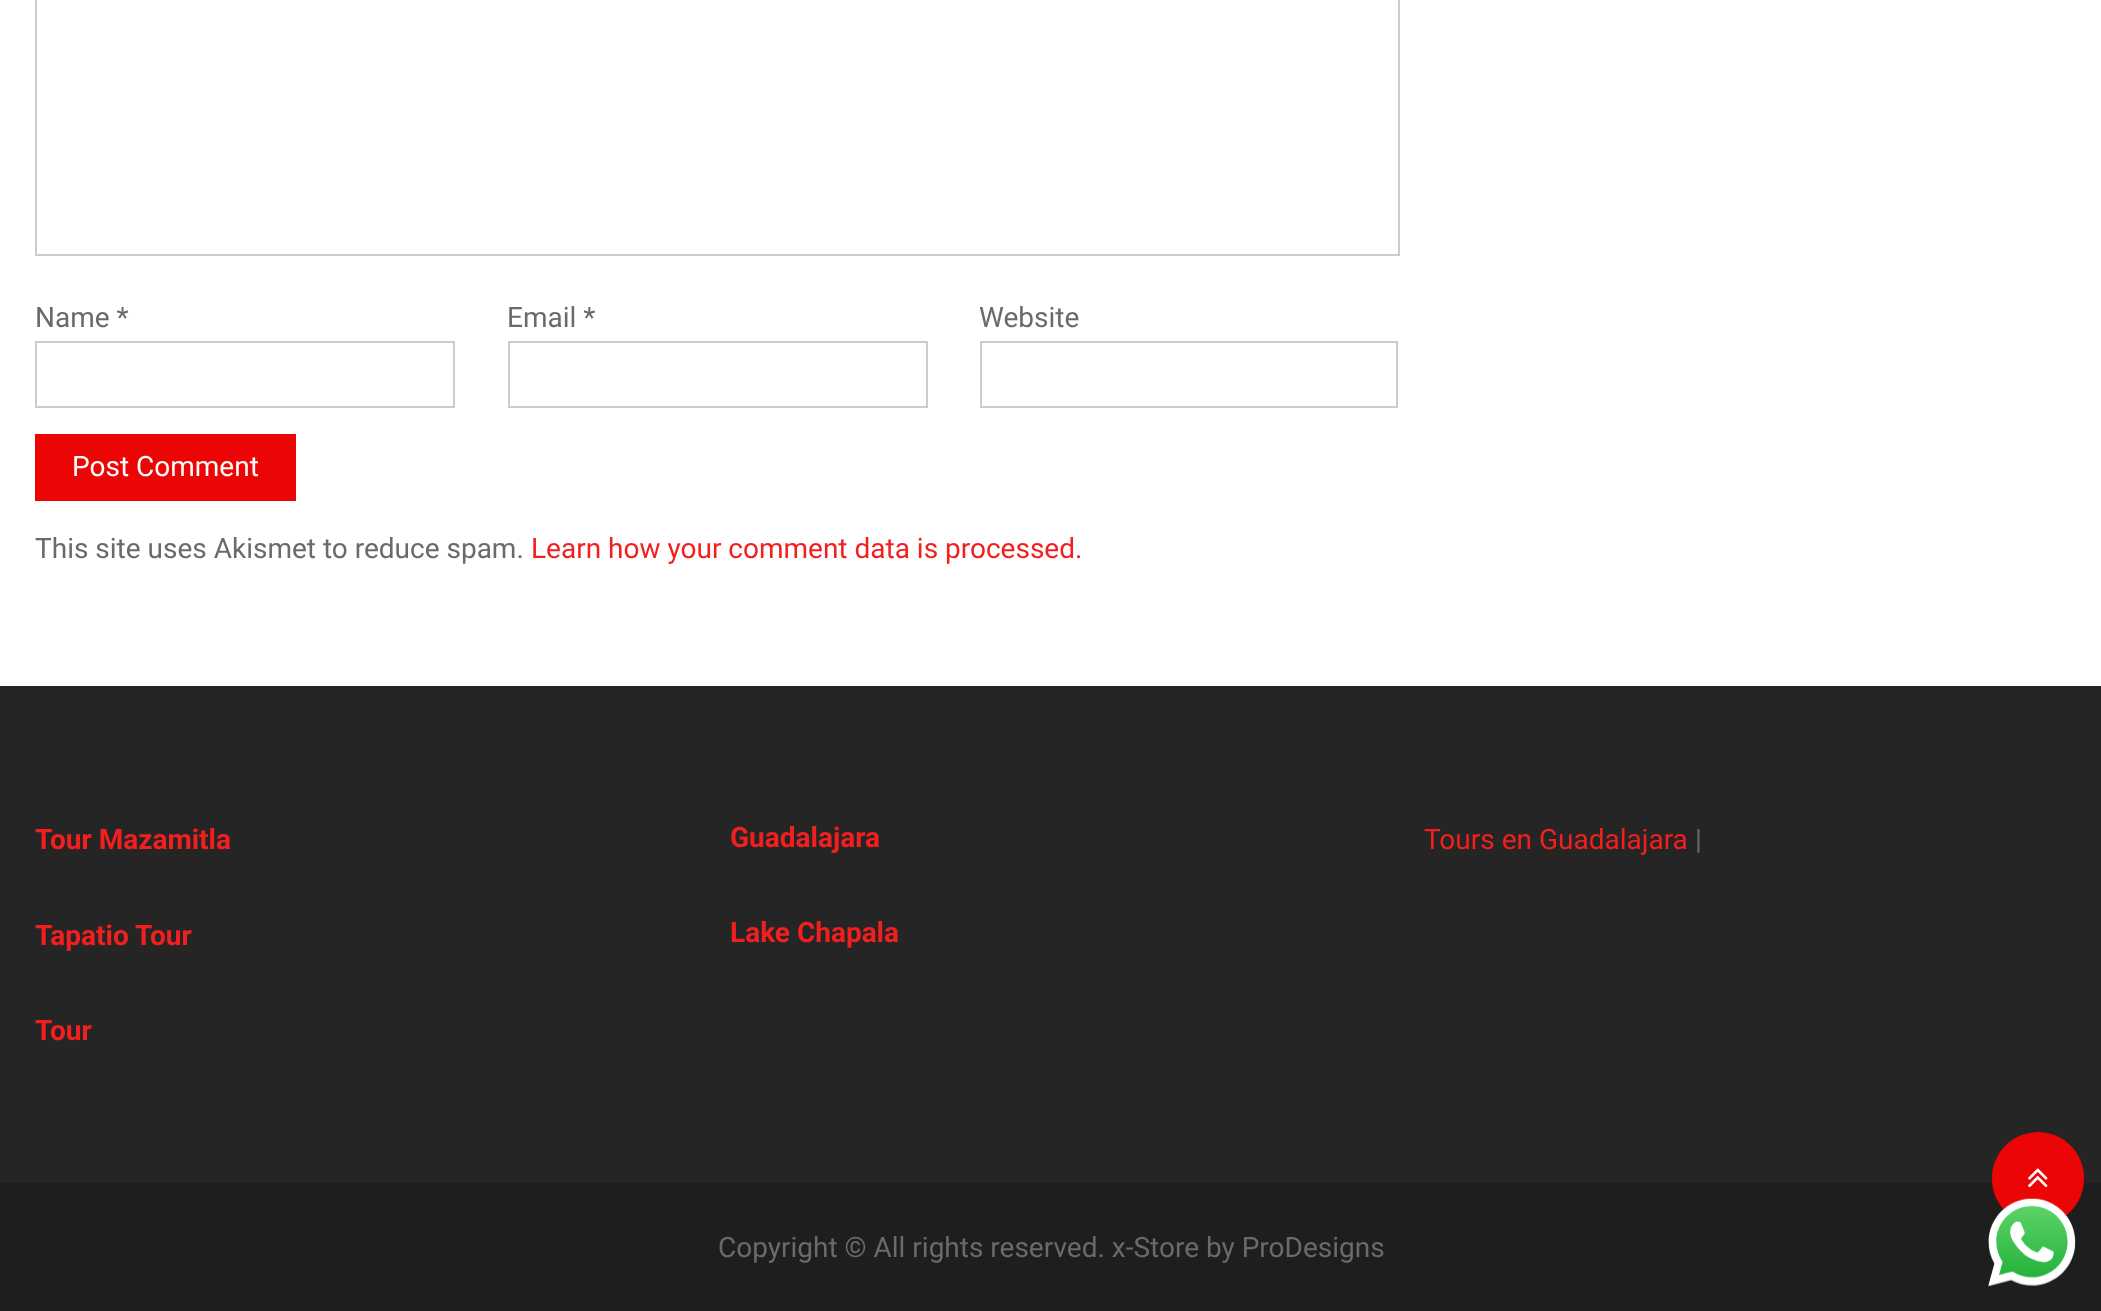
<?xml version="1.0" encoding="UTF-8"?>
<svg xmlns="http://www.w3.org/2000/svg" width="2101" height="1311">
    <rect width="100%" height="100%" fill="#FFFFFF"/>
    <rect x="36" y="-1" width="1363" height="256" fill="none" stroke="#CCCCCC" stroke-width="2"/>
    <text x="35" y="327" font-family="Roboto" font-size="28" fill="#6A6A6A">Name *</text>
    <rect x="36" y="342" width="418" height="65" fill="none" stroke="#CCCCCC" stroke-width="2"/>
    <text x="507" y="327" font-family="Roboto" font-size="28" fill="#6A6A6A">Email *</text>
    <rect x="509" y="342" width="418" height="65" fill="none" stroke="#CCCCCC" stroke-width="2"/>
    <text x="979" y="327" font-family="Roboto" font-size="28" fill="#6A6A6A">Website</text>
    <rect x="981" y="342" width="416" height="65" fill="none" stroke="#CCCCCC" stroke-width="2"/>
    <rect x="35" y="434" width="261" height="67" fill="#EB0505"/>
    <text x="72" y="476" font-family="Roboto" font-size="28" fill="#FFFFFF">Post Comment</text>
    <text x="35" y="558" font-family="Roboto" font-size="28" fill="#6A6A6A">This site uses Akismet to reduce spam.</text>
    <text x="531" y="558" font-family="Roboto" font-size="28" fill="#F31F1F">Learn how your comment data is processed.</text>
    <rect x="0" y="686" width="2101" height="497" fill="#252525"/>
    <text x="35" y="849" font-family="Roboto" font-size="28" font-weight="700" fill="#F31F1F">Tour Mazamitla</text>
    <text x="35" y="945" font-family="Roboto" font-size="28" font-weight="700" fill="#F31F1F">Tapatio Tour</text>
    <text x="35" y="1040" font-family="Roboto" font-size="28" font-weight="700" fill="#F31F1F">Tour</text>
    <text x="730" y="847" font-family="Roboto" font-size="28" font-weight="700" fill="#F31F1F">Guadalajara</text>
    <text x="730" y="942" font-family="Roboto" font-size="28" font-weight="700" fill="#F31F1F">Lake Chapala</text>
    <text x="1424" y="849" font-family="Roboto" font-size="28" fill="#F31F1F">Tours en Guadalajara</text>
    <text x="1695" y="849" font-family="Roboto" font-size="28" fill="#6A6A6A">|</text>
    <rect x="0" y="1183" width="2101" height="128" fill="#1E1E1E"/>
    <text x="718" y="1257" font-family="Roboto" font-size="28" fill="#6A6A6A">Copyright © All rights reserved. x-Store by ProDesigns</text>
    <rect x="1992" y="1132" width="92" height="93" rx="46" fill="#EB0505"/>
    <image x="2028" y="1168" width="20" height="20" href="img_01.png"/>
    <image x="1988" y="1198" width="88" height="89" href="img_02.png"/>
</svg>
